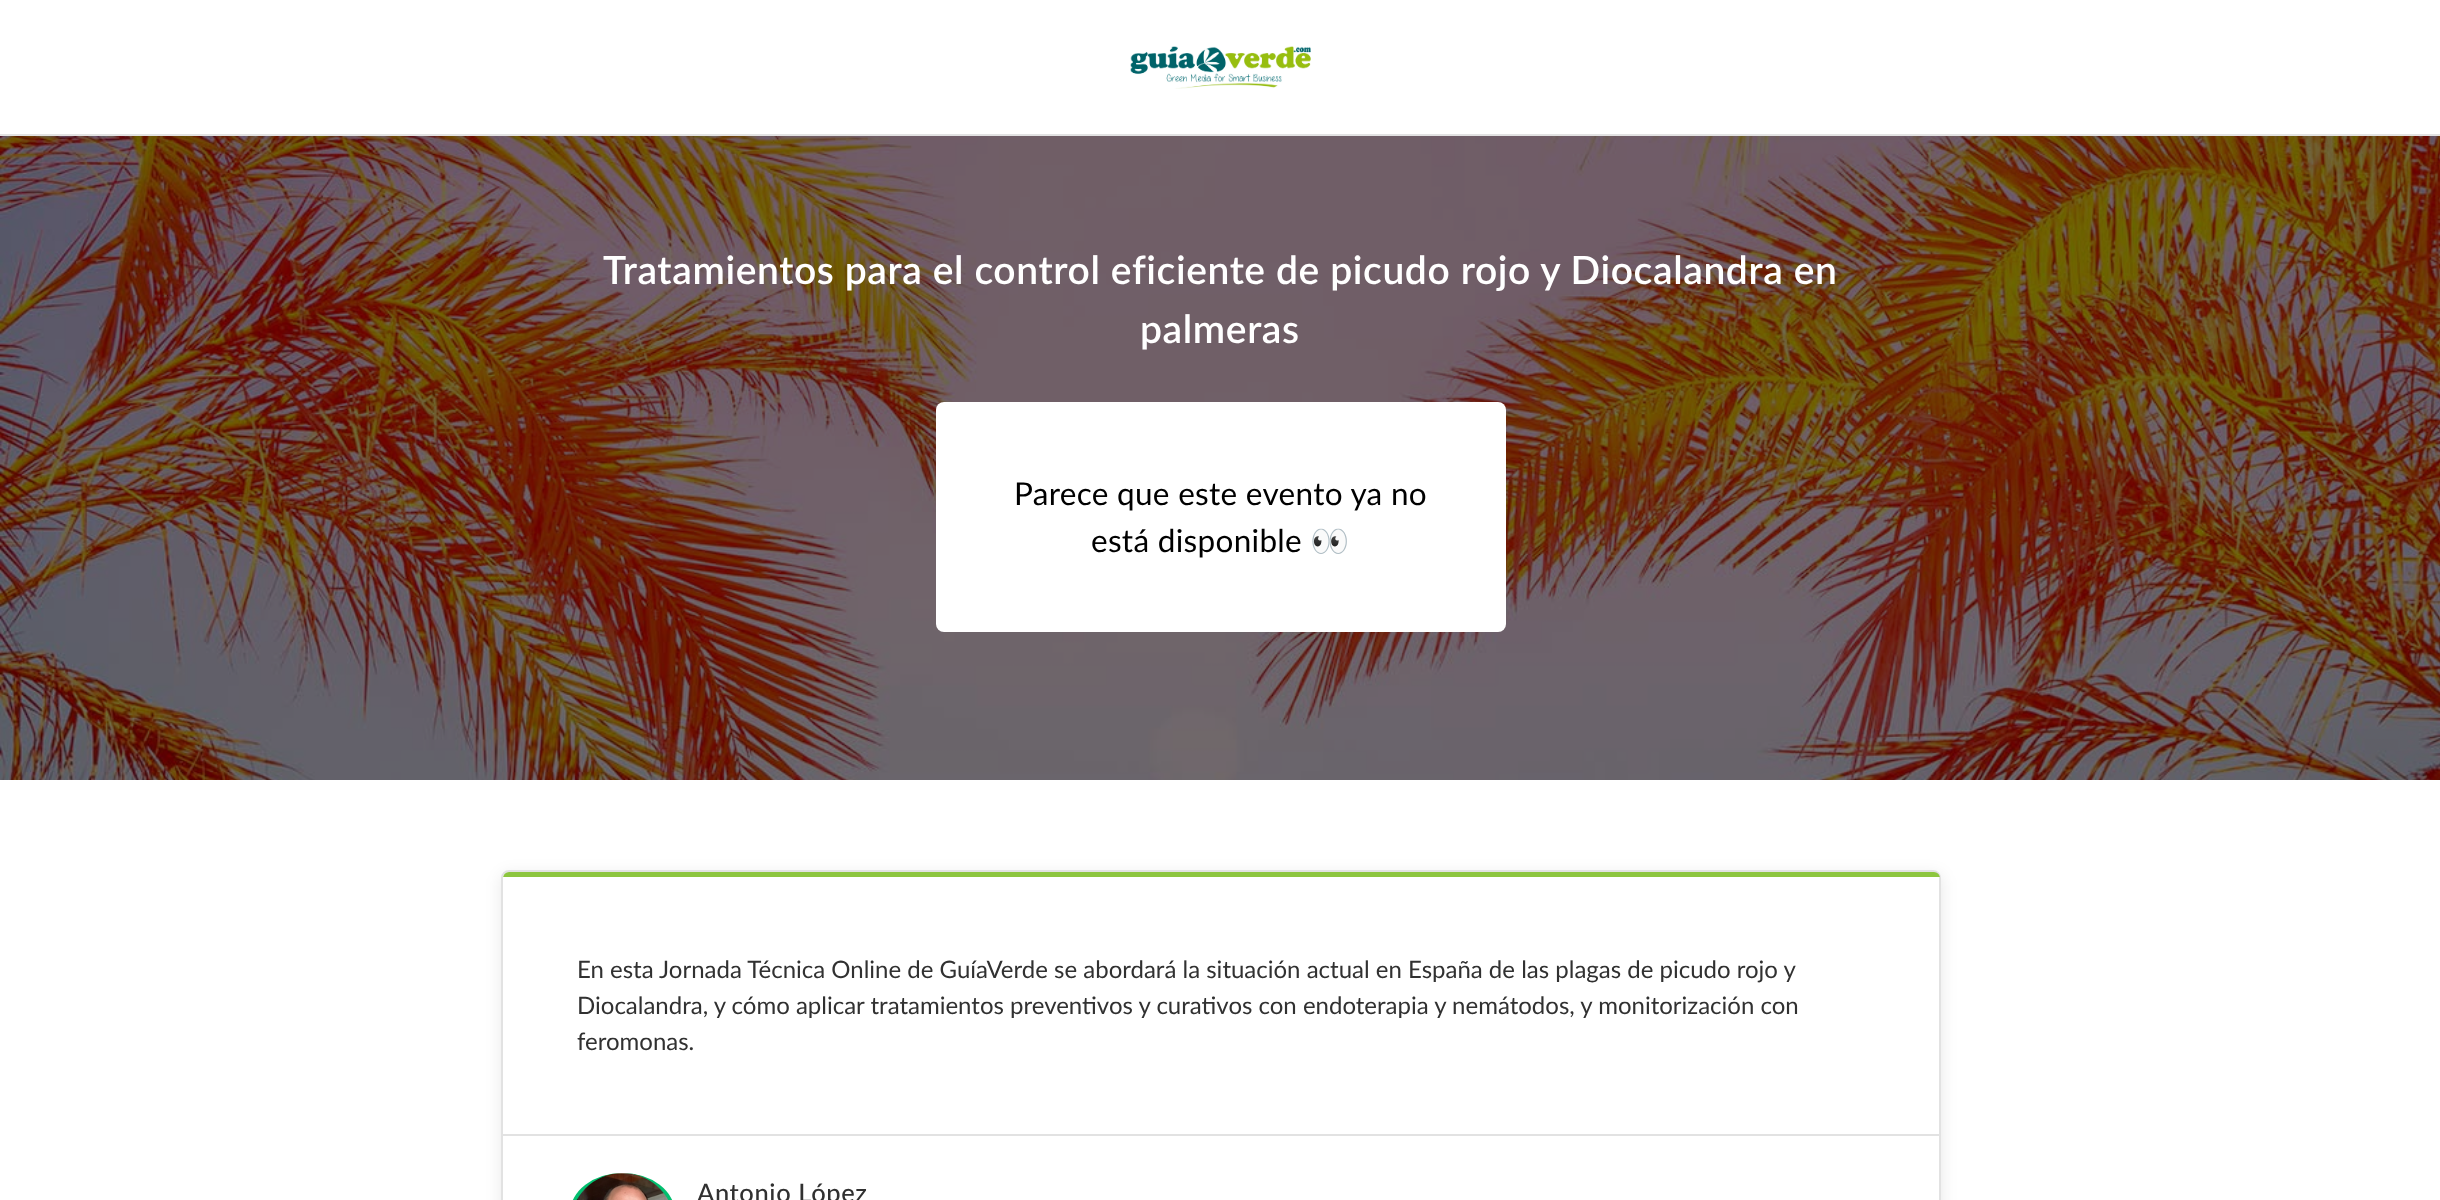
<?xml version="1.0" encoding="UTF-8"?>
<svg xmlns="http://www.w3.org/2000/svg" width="2440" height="1200">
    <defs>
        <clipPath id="clip1"><path d="M 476 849 H 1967 V 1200 H 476 Z M 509 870 H 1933 C 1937.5 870 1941 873.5 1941 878 V 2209 C 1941 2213.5 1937.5 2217 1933 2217 H 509 C 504.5 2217 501 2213.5 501 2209 V 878 C 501 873.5 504.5 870 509 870 Z" clip-rule="evenodd"/></clipPath>
        <filter id="blur1" x="-50%" y="-200%" width="200%" height="500%"><feGaussianBlur stdDeviation="7.5"/></filter>
        <clipPath id="clip2"><rect x="503" y="872" width="1437" height="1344" rx="6"/></clipPath>
    </defs>
    <rect width="100%" height="100%" fill="#FFFFFF"/>
    <rect x="0" y="134" width="2440" height="2" fill="#E2E2E2"/>
    <image x="1130" y="46" width="181" height="43" href="img_01.png"/>
    <image x="0" y="136" width="2440" height="644" href="img_02.png"/>
    <text x="603" y="284" font-family="Lato" font-size="39" font-weight="600" letter-spacing="0.6" fill="#FFFFFF">Tratamientos para el control eficiente de picudo rojo y Diocalandra en</text>
    <text x="1140" y="343" font-family="Lato" font-size="39" font-weight="600" letter-spacing="0.6" fill="#FFFFFF">palmeras</text>
    <rect x="936" y="402" width="570" height="230" rx="8" fill="#FFFFFF"/>
    <text x="1014" y="505" font-family="Lato" font-size="31.5" letter-spacing="0.3" fill="#000000">Parece que este evento ya no</text>
    <text x="1091" y="552" font-family="Lato" font-size="31.5" letter-spacing="0.3" fill="#000000">está disponible</text>
    <text x="1310" y="552" font-family="Noto Color Emoji" font-size="31.5" letter-spacing="0.3" fill="#000000">👀</text>
    <g clip-path="url(#clip1)">
        <rect x="500" y="873" width="1443" height="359" rx="9" fill="#000000" fill-opacity="0.08" filter="url(#blur1)"/>
    </g>
    <rect x="502" y="871" width="1438" height="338" rx="7" fill="none" stroke="#E2E2E2" stroke-width="2"/>
    <g clip-path="url(#clip2)">
        <path d="M 508 872 H 1935 C 1938 872 1940 874 1940 877 H 503 C 503 874 505 872 508 872 Z" fill="#8DC63F"/>
    </g>
    <rect x="503" y="1134" width="1437" height="2" fill="#E2E2E2"/>
    <text font-family="Lato" font-size="24" fill="#313131">
        <tspan x="577" y="978">En esta Jornada Técnica Online de GuíaVerde se abordará la situación actual en España de las plagas de picudo rojo y</tspan>
        <tspan x="577" y="1014">Diocalandra, y cómo aplicar tratamientos preventivos y curativos con endoterapia y nemátodos, y monitorización con</tspan>
        <tspan x="577" y="1050">feromonas.</tspan>
    </text>
    <rect x="570" y="1173" width="105" height="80" rx="52.5" fill="#02BF6F"/>
    <image x="576" y="1173" width="93" height="27" href="img_03.png"/>
    <text x="697" y="1202" font-family="Lato" font-size="25.5" font-weight="500" letter-spacing="0.6" fill="#313131">Antonio López</text>
</svg>
